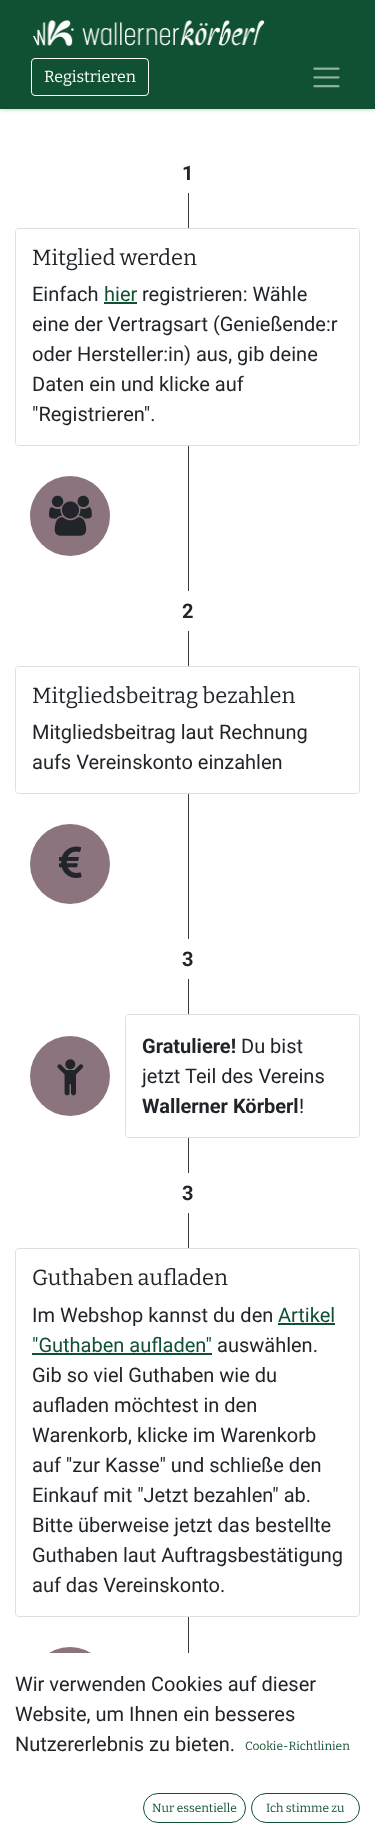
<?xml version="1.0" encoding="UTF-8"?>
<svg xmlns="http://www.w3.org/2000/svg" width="375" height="1839">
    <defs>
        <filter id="blur1" x="-50%" y="-200%" width="200%" height="500%"><feGaussianBlur stdDeviation="2.5"/></filter>
    </defs>
    <rect width="100%" height="100%" fill="#FFFFFF"/>
    <rect x="0" y="0" width="375" height="109" fill="#000000" fill-opacity="0.25" filter="url(#blur1)"/>
    <rect x="0" y="0" width="375" height="109" fill="#0F5132"/>
    <image x="33" y="20" width="232" height="26" href="img_01.png"/>
    <rect x="31.5" y="58.5" width="117" height="37" rx="3.5" fill="none" stroke="#FFFFFF"/>
    <text x="44" y="82" font-family="Bitter" font-size="16" fill="#FFFFFF">Registrieren</text>
    <image x="313" y="67" width="27" height="21" href="img_02.png"/>
    <text x="182" y="180" font-family="Roboto" font-size="20" font-weight="700" fill="#212529">1</text>
    <rect x="188" y="193" width="1" height="1460" fill="#343A40"/>
    <rect x="15.5" y="228.5" width="344" height="217" rx="3.5" fill="#FFFFFF" stroke="#DFDFDF"/>
    <rect x="16" y="229" width="343" height="216" rx="3" fill="#FFFFFF" fill-opacity="0.9"/>
    <text x="32" y="265" font-family="Bitter" font-size="21.9" fill="#212529">Mitglied werden</text>
    <text x="32" y="301" font-family="Roboto" font-size="20" fill="#212529">Einfach</text>
    <text x="104" y="301" font-family="Roboto" font-size="20" fill="#0F5132">hier</text>
    <rect x="104" y="302" width="33" height="2" fill="#0F5132"/>
    <text x="142" y="301" font-family="Roboto" font-size="20" fill="#212529">registrieren: Wähle</text>
    <text font-family="Roboto" font-size="20" fill="#212529">
        <tspan x="32" y="331">eine der Vertragsart (Genießende:r</tspan>
        <tspan x="32" y="361">oder Hersteller:in) aus, gib deine</tspan>
        <tspan x="32" y="391">Daten ein und klicke auf</tspan>
        <tspan x="32" y="421">"Registrieren".</tspan>
    </text>
    <circle cx="70" cy="516" r="40" fill="#8C747F"/>
    <image x="49" y="495" width="43" height="41" href="img_03.png"/>
    <rect x="188" y="591" width="1" height="40" fill="#FFFFFF"/>
    <text x="182" y="618" font-family="Roboto" font-size="20" font-weight="700" fill="#212529">2</text>
    <rect x="15.5" y="666.5" width="344" height="127" rx="3.5" fill="#FFFFFF" stroke="#DFDFDF"/>
    <rect x="16" y="667" width="343" height="126" rx="3" fill="#FFFFFF" fill-opacity="0.9"/>
    <text x="32" y="703" font-family="Bitter" font-size="21.9" fill="#212529">Mitgliedsbeitrag bezahlen</text>
    <text font-family="Roboto" font-size="20" fill="#212529">
        <tspan x="32" y="739">Mitgliedsbeitrag laut Rechnung</tspan>
        <tspan x="32" y="769">aufs Vereinskonto einzahlen</tspan>
    </text>
    <circle cx="70" cy="864" r="40" fill="#8C747F"/>
    <image x="59" y="846" width="23" height="32" href="img_04.png"/>
    <rect x="188" y="939" width="1" height="40" fill="#FFFFFF"/>
    <text x="182" y="966" font-family="Roboto" font-size="20" font-weight="700" fill="#212529">3</text>
    <circle cx="70" cy="1076" r="40" fill="#8C747F"/>
    <image x="57" y="1059" width="27" height="37" href="img_05.png"/>
    <rect x="125.5" y="1014.5" width="234" height="123" rx="3.5" fill="#FFFFFF" stroke="#DFDFDF"/>
    <rect x="126" y="1015" width="233" height="122" rx="3" fill="#FFFFFF" fill-opacity="0.9"/>
    <text x="142" y="1053" font-family="Roboto" font-size="20" font-weight="700" fill="#212529">Gratuliere!</text>
    <text x="241" y="1053" font-family="Roboto" font-size="20" fill="#212529">Du bist</text>
    <text x="142" y="1083" font-family="Roboto" font-size="20" fill="#212529">jetzt Teil des Vereins</text>
    <text x="142" y="1113" font-family="Roboto" font-size="20" font-weight="700" fill="#212529">Wallerner Körberl</text>
    <text x="299" y="1113" font-family="Roboto" font-size="20" fill="#212529">!</text>
    <rect x="188" y="1173" width="1" height="40" fill="#FFFFFF"/>
    <text x="182" y="1200" font-family="Roboto" font-size="20" font-weight="700" fill="#212529">3</text>
    <rect x="15.5" y="1248.5" width="344" height="368" rx="3.5" fill="#FFFFFF" stroke="#DFDFDF"/>
    <rect x="16" y="1249" width="343" height="367" rx="3" fill="#FFFFFF" fill-opacity="0.9"/>
    <text x="32" y="1285" font-family="Bitter" font-size="21.9" fill="#212529">Guthaben aufladen</text>
    <text x="32" y="1322" font-family="Roboto" font-size="20" fill="#212529">Im Webshop kannst du den</text>
    <text x="278" y="1322" font-family="Roboto" font-size="20" fill="#0F5132">Artikel</text>
    <rect x="278" y="1323" width="57" height="2" fill="#0F5132"/>
    <text x="32" y="1352" font-family="Roboto" font-size="20" fill="#0F5132">"Guthaben aufladen"</text>
    <rect x="32" y="1353" width="180" height="2" fill="#0F5132"/>
    <text x="217" y="1352" font-family="Roboto" font-size="20" fill="#212529">auswählen.</text>
    <text font-family="Roboto" font-size="20" fill="#212529">
        <tspan x="32" y="1382">Gib so viel Guthaben wie du</tspan>
        <tspan x="32" y="1412">aufladen möchtest in den</tspan>
        <tspan x="32" y="1442">Warenkorb, klicke im Warenkorb</tspan>
        <tspan x="32" y="1472">auf "zur Kasse" und schließe den</tspan>
        <tspan x="32" y="1502">Einkauf mit "Jetzt bezahlen" ab.</tspan>
        <tspan x="32" y="1532">Bitte überweise jetzt das bestellte</tspan>
        <tspan x="32" y="1562">Guthaben laut Auftragsbestätigung</tspan>
        <tspan x="32" y="1592">auf das Vereinskonto.</tspan>
    </text>
    <circle cx="70" cy="1687" r="40" fill="#8C747F"/>
    <rect x="30" y="1653" width="80" height="74" fill="#FFFFFF"/>
    <text font-family="Roboto" font-size="20" fill="#212529">
        <tspan x="15" y="1691">Wir verwenden Cookies auf dieser</tspan>
        <tspan x="15" y="1721">Website, um Ihnen ein besseres</tspan>
        <tspan x="15" y="1751">Nutzererlebnis zu bieten.</tspan>
    </text>
    <text x="245" y="1750" font-family="Bitter" font-size="12" fill="#0F5132">Cookie-Richtlinien</text>
    <rect x="143.5" y="1793.5" width="102" height="29" rx="14.5" fill="none" stroke="#0F5132"/>
    <text x="152" y="1812" font-family="Bitter" font-size="12" fill="#0F5132">Nur essentielle</text>
    <rect x="251.5" y="1793.5" width="108" height="29" rx="14.5" fill="none" stroke="#0F5132"/>
    <text x="266" y="1812" font-family="Bitter" font-size="12" fill="#0F5132">Ich stimme zu</text>
</svg>
